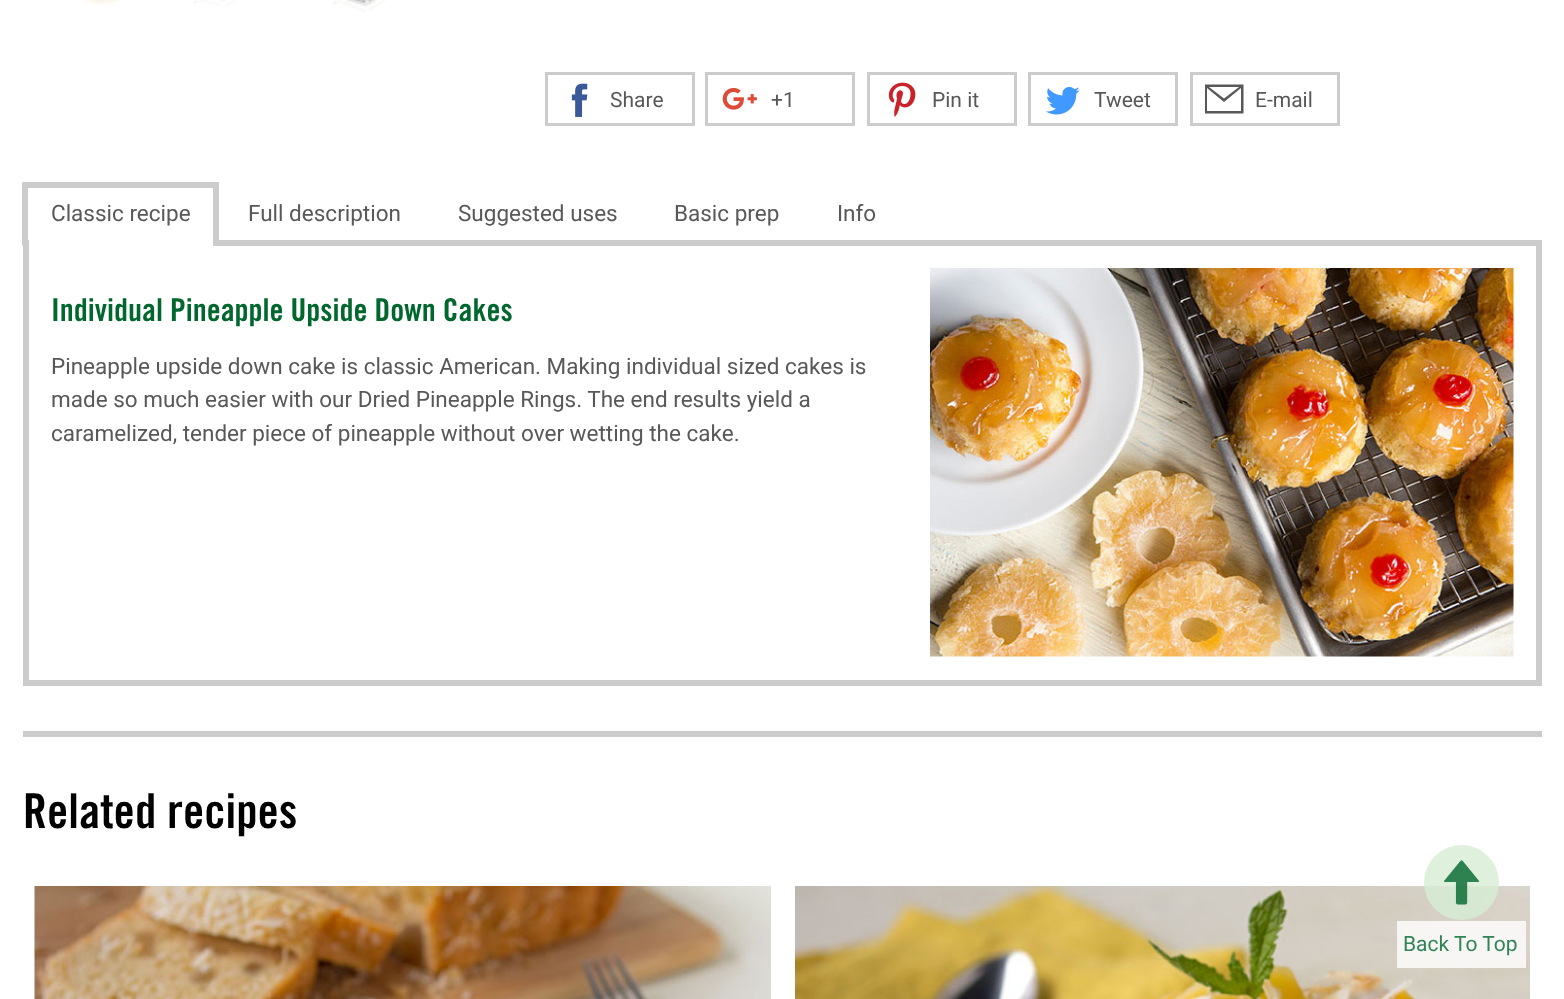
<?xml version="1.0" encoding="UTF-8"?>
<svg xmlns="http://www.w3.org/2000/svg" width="1564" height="999">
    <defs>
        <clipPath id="clip1"><rect x="1205" y="80" width="39" height="39"/></clipPath>
    </defs>
    <rect width="100%" height="100%" fill="#FFFFFF"/>
    <image x="84" y="0" width="37" height="5" href="img_01.png"/>
    <image x="193" y="0" width="44" height="6" href="img_02.png"/>
    <image x="332" y="0" width="54" height="12" href="img_03.png"/>
    <rect x="546.5" y="73.5" width="147" height="51" fill="none" stroke="#CCCCCC" stroke-width="3"/>
    <image x="571" y="83" width="17" height="34" href="img_04.png"/>
    <text x="610" y="107" font-family="Roboto" font-size="21" fill="#585858">Share</text>
    <rect x="706.5" y="73.5" width="147" height="51" fill="none" stroke="#CCCCCC" stroke-width="3"/>
    <image x="722" y="87" width="35" height="23" href="img_05.png"/>
    <text x="771" y="107" font-family="Roboto" font-size="21" fill="#585858">+1</text>
    <rect x="868.5" y="73.5" width="147" height="51" fill="none" stroke="#CCCCCC" stroke-width="3"/>
    <image x="888" y="82" width="28" height="35" href="img_06.png"/>
    <text x="932" y="107" font-family="Roboto" font-size="21" fill="#585858">Pin it</text>
    <rect x="1029.5" y="73.5" width="147" height="51" fill="none" stroke="#CCCCCC" stroke-width="3"/>
    <image x="1046" y="86" width="34" height="29" href="img_07.png"/>
    <text x="1094" y="107" font-family="Roboto" font-size="21" fill="#585858">Tweet</text>
    <rect x="1191.5" y="73.5" width="147" height="51" fill="none" stroke="#CCCCCC" stroke-width="3"/>
    <g clip-path="url(#clip1)">
        <path d="M 1204.5 84.5 V 113.5 H 1243.5 V 84.5 Z M 1239 87 L 1224 98.5 L 1209 87 Z M 1241 111 H 1207 V 88 L 1224 102 L 1241 88 Z" fill="#585858"/>
    </g>
    <text x="1255" y="107" font-family="Roboto" font-size="21" fill="#585858">E-mail</text>
    <rect x="23" y="240" width="1519" height="6" fill="#CCCCCC"/>
    <rect x="23" y="182" width="196" height="6" fill="#CCCCCC"/>
    <path d="M 219 182 V 246 L 213 240 V 188 Z" fill="#CCCCCC"/>
    <path d="M 22 246 V 182 L 28 188 V 240 Z" fill="#CCCCCC"/>
    <rect x="29" y="240" width="184" height="6" fill="#FFFFFF"/>
    <text x="51" y="221" font-family="Roboto" font-size="22.5" fill="#585858">Classic recipe</text>
    <text x="248" y="221" font-family="Roboto" font-size="22.5" fill="#585858">Full description</text>
    <text x="458" y="221" font-family="Roboto" font-size="22.5" fill="#585858">Suggested uses</text>
    <text x="674" y="221" font-family="Roboto" font-size="22.5" fill="#585858">Basic prep</text>
    <text x="837" y="221" font-family="Roboto" font-size="22.5" fill="#585858">Info</text>
    <rect x="1536" y="246" width="6" height="440" fill="#CCCCCC"/>
    <rect x="23" y="680" width="1519" height="6" fill="#CCCCCC"/>
    <rect x="23" y="246" width="6" height="440" fill="#CCCCCC"/>
    <text x="51" y="321" font-family="Trade Gothic" font-size="31.5" font-weight="700" fill="#00672D">Individual Pineapple Upside Down Cakes</text>
    <text font-family="Roboto" font-size="22.5" fill="#585858">
        <tspan x="51" y="374">Pineapple upside down cake is classic American. Making individual sized cakes is</tspan>
        <tspan x="51" y="407">made so much easier with our Dried Pineapple Rings. The end results yield a</tspan>
        <tspan x="51" y="441">caramelized, tender piece of pineapple without over wetting the cake.</tspan>
    </text>
    <image x="930" y="268" width="584" height="389" href="img_08.png"/>
    <rect x="23" y="731" width="1519" height="6" fill="#CCCCCC"/>
    <text x="23" y="828" font-family="Trade Gothic" font-size="48" font-weight="700" fill="#000000">Related recipes</text>
    <image x="34" y="886" width="737" height="113" href="img_09.png"/>
    <image x="795" y="886" width="735" height="113" href="img_10.png"/>
    <circle cx="1461.5" cy="882.5" r="37.5" fill="#D7EDD4" fill-opacity="0.8"/>
    <image x="1444" y="860" width="36" height="45" href="img_11.png"/>
    <rect x="1397" y="921" width="129" height="47" fill="#FFFFFF" fill-opacity="0.8"/>
    <text x="1403" y="951" font-family="Roboto" font-size="21" fill="#318455">Back To Top</text>
</svg>
